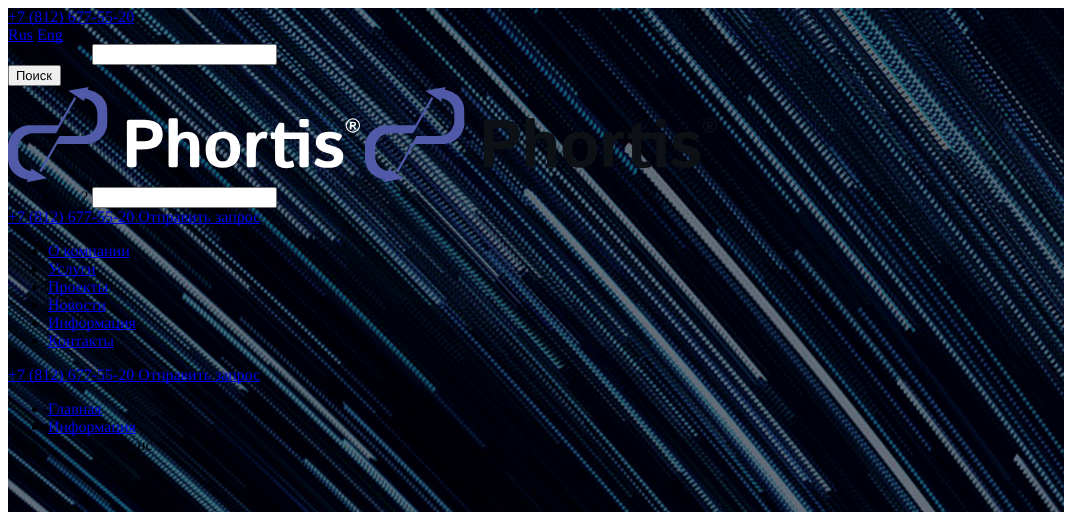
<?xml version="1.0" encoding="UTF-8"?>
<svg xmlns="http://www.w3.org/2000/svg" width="1072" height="520">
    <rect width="100%" height="100%" fill="#FFFFFF"/>
    <image x="8" y="8" width="1056" height="504" href="img_01.png"/>
    <rect x="8" y="23" width="126" height="1" fill="#0000EE"/>
    <text font-family="Liberation Serif" font-size="16" fill="#0000EE">
        <tspan x="8" y="22">+7 (812) 677-55-20</tspan>
        <tspan x="8" y="40">Rus</tspan>
    </text>
    <rect x="8" y="41" width="25" height="1" fill="#0000EE"/>
    <rect x="37" y="41" width="26" height="1" fill="#0000EE"/>
    <text x="37" y="40" font-family="Liberation Serif" font-size="16" fill="#0000EE">Eng</text>
    <rect x="92.5" y="44.5" width="184" height="20" rx="1.5" fill="#FFFFFF" stroke="#767676"/>
    <rect x="8.5" y="65.5" width="52" height="20" rx="1.5" fill="#EFEFEF" stroke="#767676"/>
    <text x="16" y="80" font-family="Liberation Sans" font-size="13" fill="#000000">Поиск</text>
    <image x="8" y="87" width="352" height="96" href="img_02.png"/>
    <image x="365" y="87" width="352" height="96" href="img_03.png"/>
    <text x="81" y="202" font-family="Liberation Serif" font-size="16" fill="#000000">?</text>
    <rect x="92.5" y="187.5" width="184" height="20" rx="1.5" fill="#FFFFFF" stroke="#767676"/>
    <rect x="8" y="223" width="252" height="1" fill="#0000EE"/>
    <text x="8" y="222" font-family="Liberation Serif" font-size="16" fill="#0000EE">+7 (812) 677-55-20 Отправить запрос</text>
    <circle cx="34.5" cy="251.5" r="2.5" fill="#000000"/>
    <text x="48" y="256" font-family="Liberation Serif" font-size="16" fill="#0000EE">О компании</text>
    <rect x="48" y="257" width="82" height="1" fill="#0000EE"/>
    <circle cx="34.5" cy="269.5" r="2.5" fill="#000000"/>
    <rect x="48" y="275" width="48" height="1" fill="#0000EE"/>
    <text x="48" y="274" font-family="Liberation Serif" font-size="16" fill="#0000EE">Услуги</text>
    <circle cx="34.5" cy="287.5" r="2.5" fill="#000000"/>
    <rect x="48" y="293" width="60" height="1" fill="#0000EE"/>
    <text x="48" y="292" font-family="Liberation Serif" font-size="16" fill="#0000EE">Проекты</text>
    <circle cx="34.5" cy="305.5" r="2.5" fill="#000000"/>
    <text x="48" y="310" font-family="Liberation Serif" font-size="16" fill="#0000EE">Новости</text>
    <rect x="48" y="311" width="58" height="1" fill="#0000EE"/>
    <circle cx="34.5" cy="323.5" r="2.5" fill="#000000"/>
    <rect x="48" y="329" width="88" height="1" fill="#0000EE"/>
    <text x="48" y="328" font-family="Liberation Serif" font-size="16" fill="#0000EE">Информация</text>
    <circle cx="34.5" cy="341.5" r="2.5" fill="#000000"/>
    <text x="48" y="346" font-family="Liberation Serif" font-size="16" fill="#0000EE">Контакты</text>
    <rect x="48" y="347" width="66" height="1" fill="#0000EE"/>
    <rect x="8" y="381" width="252" height="1" fill="#0000EE"/>
    <text x="8" y="380" font-family="Liberation Serif" font-size="16" fill="#0000EE">+7 (812) 677-55-20 Отправить запрос</text>
    <circle cx="34.5" cy="409.5" r="2.5" fill="#000000"/>
    <text x="48" y="414" font-family="Liberation Serif" font-size="16" fill="#0000EE">Главная</text>
    <rect x="48" y="415" width="54" height="1" fill="#0000EE"/>
    <circle cx="34.5" cy="427.5" r="2.5" fill="#000000"/>
    <rect x="48" y="433" width="88" height="1" fill="#0000EE"/>
    <text x="48" y="432" font-family="Liberation Serif" font-size="16" fill="#0000EE">Информация</text>
    <circle cx="34.5" cy="445.5" r="2.5" fill="#000000"/>
    <text x="137" y="450" font-family="Liberation Serif" font-size="16" fill="#000000">нс</text>
</svg>
